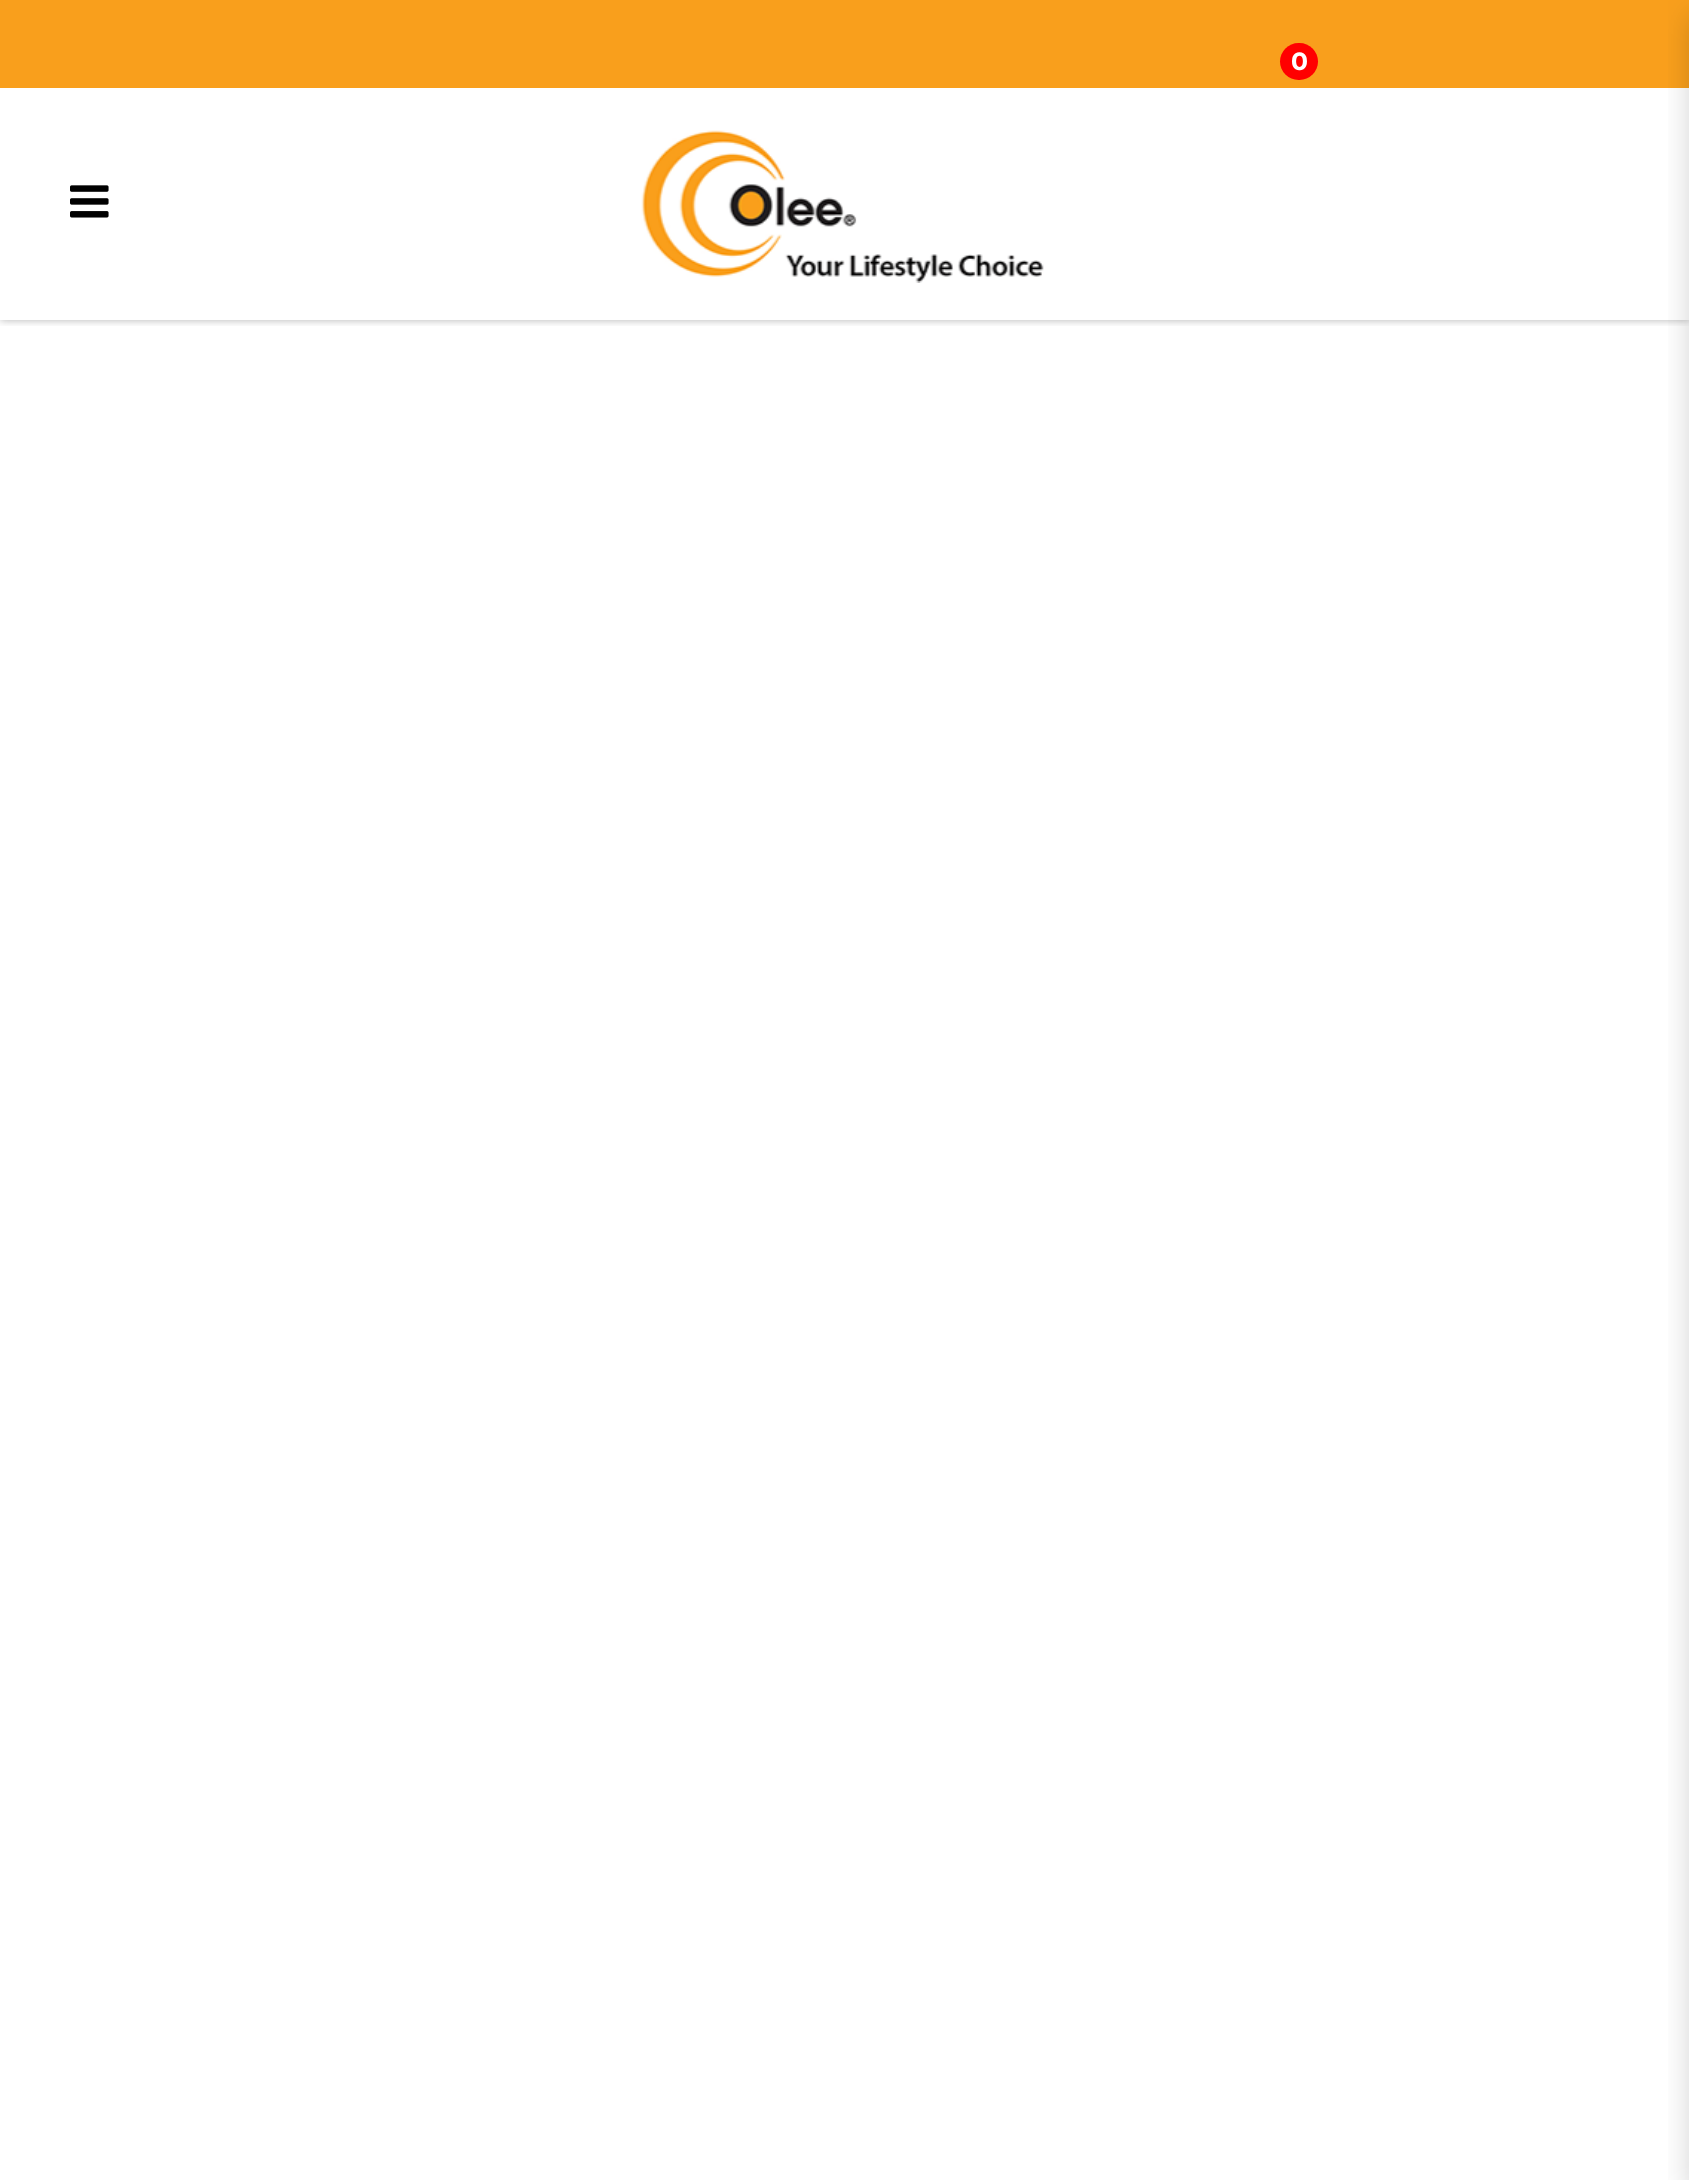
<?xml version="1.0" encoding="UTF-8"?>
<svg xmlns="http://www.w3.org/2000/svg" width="1689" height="2180">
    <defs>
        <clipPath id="clip1"><rect x="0" y="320" width="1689" height="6"/></clipPath>
        <filter id="blur1" x="-50%" y="-200%" width="200%" height="500%"><feGaussianBlur stdDeviation="4"/></filter>
        <filter id="blur2" x="-50%" y="-200%" width="200%" height="500%"><feGaussianBlur stdDeviation="15"/></filter>
    </defs>
    <rect width="100%" height="100%" fill="#FFFFFF"/>
    <g clip-path="url(#clip1)">
        <rect x="0" y="0" width="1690" height="320" fill="#000000" fill-opacity="0.3" filter="url(#blur1)"/>
    </g>
    <rect x="0" y="0" width="1689" height="88" fill="#F99F1C"/>
    <rect x="1280" y="43" width="38" height="37" rx="18.5" fill="#FF0000"/>
    <text x="1291" y="70" font-family="Montserrat" font-size="25" font-weight="700" fill="#FFFFFF">0</text>
    <rect x="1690" y="15" width="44" height="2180" fill="#000000" fill-opacity="0.18" filter="url(#blur2)"/>
    <image x="70" y="185" width="39" height="33" href="img_01.png"/>
    <image x="641" y="130" width="403" height="153" href="img_02.png"/>
</svg>
